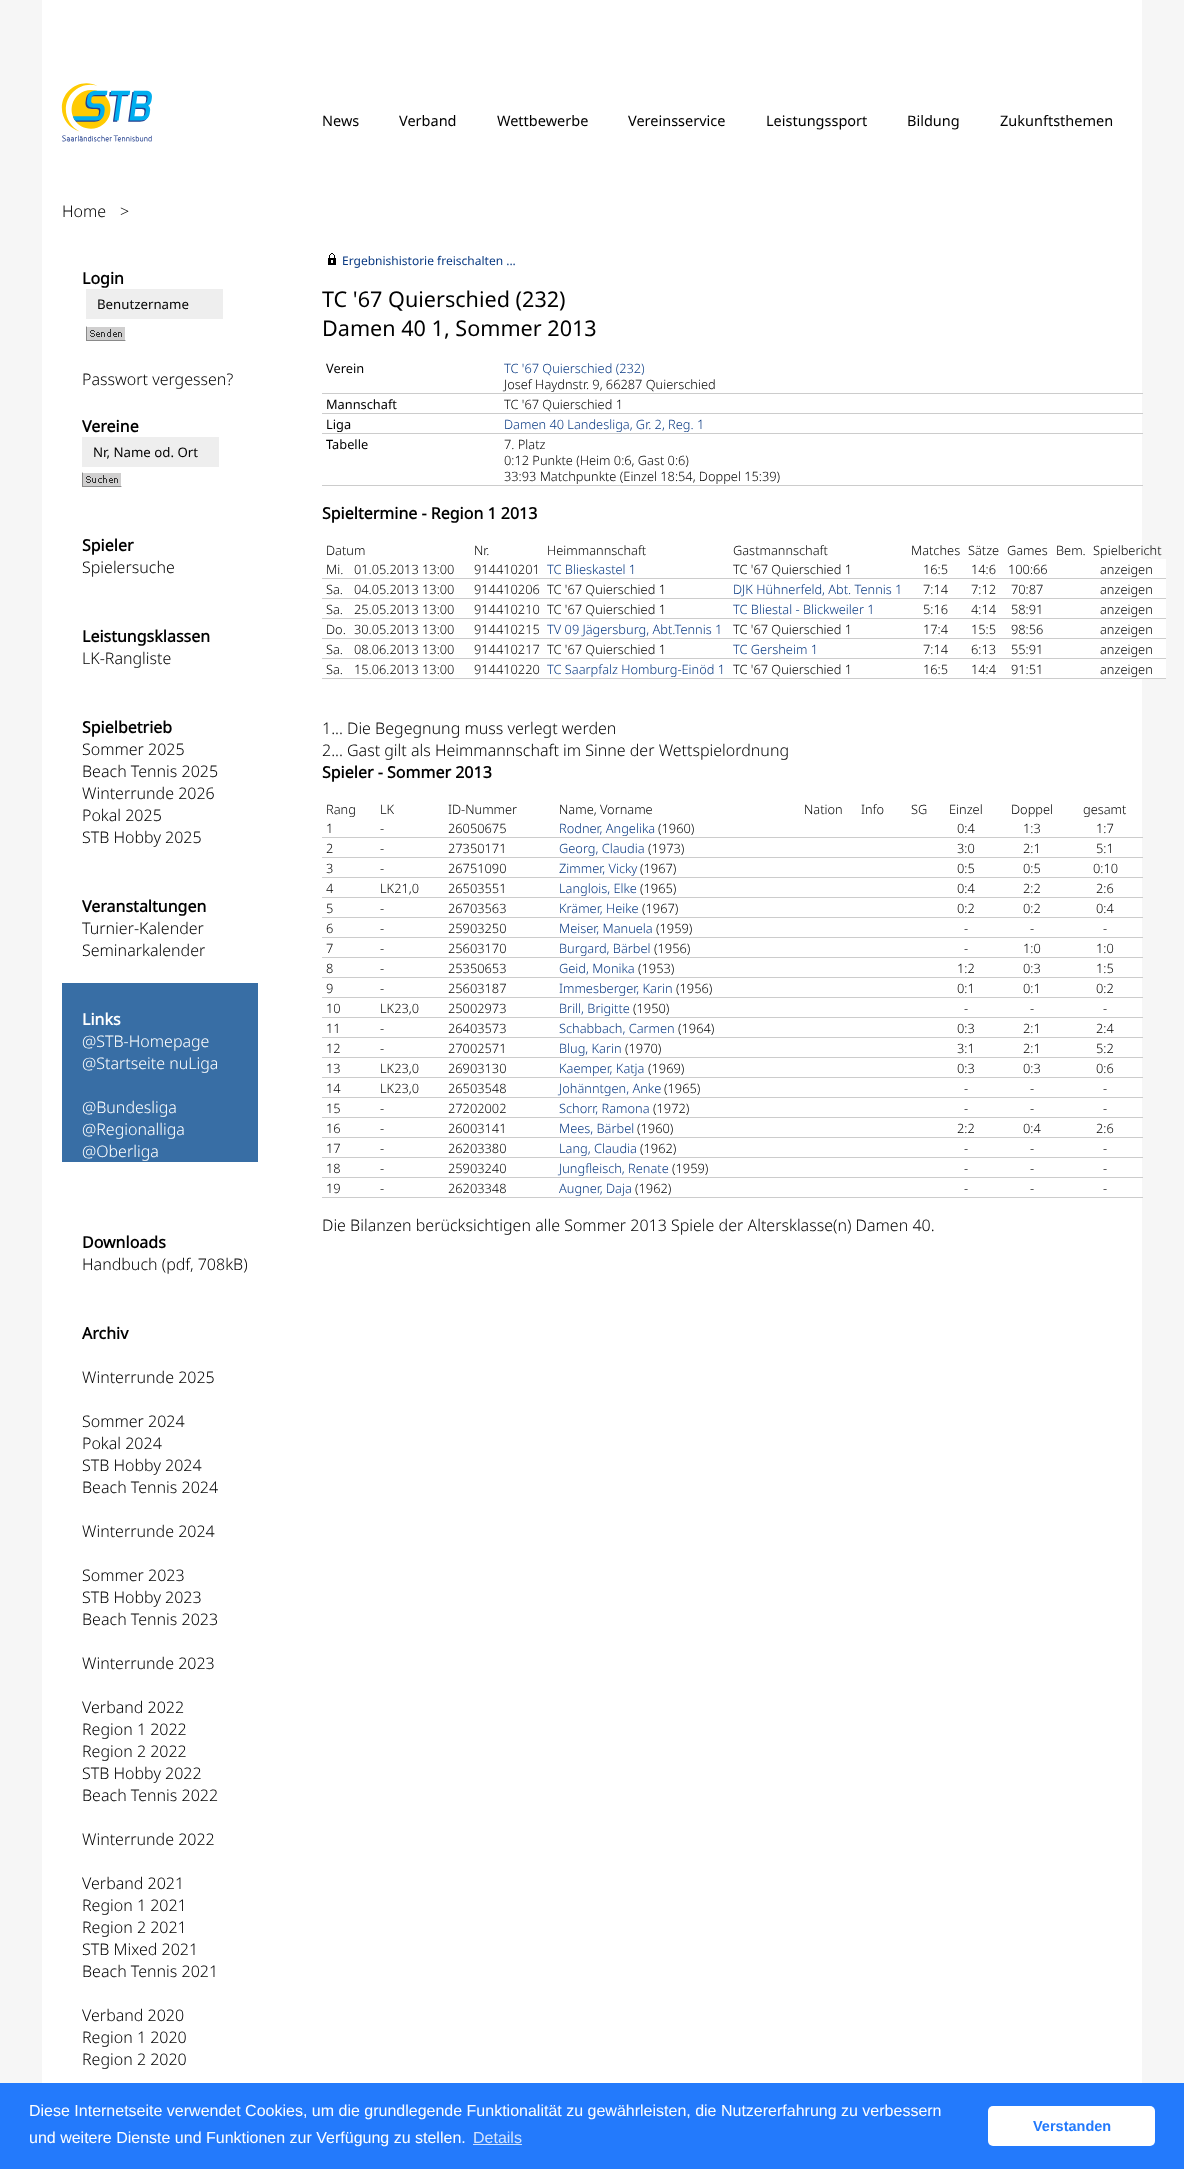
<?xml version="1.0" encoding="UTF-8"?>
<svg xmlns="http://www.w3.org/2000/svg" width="1184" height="2169">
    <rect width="100%" height="100%" fill="#F6F6F6"/>
    <rect x="42" y="0" width="1100" height="2083" fill="#FFFFFF"/>
    <image x="61" y="83" width="91" height="59" href="img_01.png"/>
    <text x="322" y="126" font-family="Noto Sans" font-size="14.5" fill="#000000">News</text>
    <text x="399" y="126" font-family="Noto Sans" font-size="14.5" fill="#000000">Verband</text>
    <text x="497" y="126" font-family="Noto Sans" font-size="14.5" fill="#000000">Wettbewerbe</text>
    <text x="628" y="126" font-family="Noto Sans" font-size="14.5" fill="#000000">Vereinsservice</text>
    <text x="766" y="126" font-family="Noto Sans" font-size="14.5" fill="#000000">Leistungssport</text>
    <text x="907" y="126" font-family="Noto Sans" font-size="14.5" fill="#000000">Bildung</text>
    <text x="1000" y="126" font-family="Noto Sans" font-size="14.5" fill="#000000">Zukunftsthemen</text>
    <text x="62" y="217" font-family="Noto Sans" font-size="16" font-weight="300" fill="#000000">Home</text>
    <text x="120" y="217" font-family="Noto Sans" font-size="16" font-weight="300" fill="#000000">&gt;</text>
    <text x="82" y="284" font-family="Noto Sans" font-size="16" font-weight="700" fill="#000000">Login</text>
    <rect x="86" y="289" width="137" height="30" fill="#EEEEEE"/>
    <text x="97" y="309" font-family="Noto Sans" font-size="13.25" fill="#000000">Benutzername</text>
    <image x="86" y="326" width="40" height="15" href="img_02.png"/>
    <text x="82" y="385" font-family="Noto Sans" font-size="16" font-weight="300" fill="#000000">Passwort vergessen?</text>
    <text x="82" y="432" font-family="Noto Sans" font-size="16" font-weight="700" fill="#000000">Vereine</text>
    <rect x="82" y="437" width="137" height="30" fill="#EEEEEE"/>
    <text x="93" y="457" font-family="Noto Sans" font-size="13.25" fill="#000000">Nr, Name od. Ort</text>
    <image x="82" y="472" width="40" height="15" href="img_03.png"/>
    <text x="82" y="551" font-family="Noto Sans" font-size="16" font-weight="700" fill="#000000">Spieler</text>
    <text x="82" y="573" font-family="Noto Sans" font-size="16" font-weight="300" fill="#000000">Spielersuche</text>
    <text x="82" y="642" font-family="Noto Sans" font-size="16" font-weight="700" fill="#000000">Leistungsklassen</text>
    <text x="82" y="664" font-family="Noto Sans" font-size="16" font-weight="300" fill="#000000">LK-Rangliste</text>
    <text x="82" y="733" font-family="Noto Sans" font-size="16" font-weight="700" fill="#000000">Spielbetrieb</text>
    <text font-family="Noto Sans" font-size="16" font-weight="300" fill="#000000">
        <tspan x="82" y="755">Sommer 2025</tspan>
        <tspan x="82" y="777">Beach Tennis 2025</tspan>
        <tspan x="82" y="799">Winterrunde 2026</tspan>
        <tspan x="82" y="821">Pokal 2025</tspan>
        <tspan x="82" y="843">STB Hobby 2025</tspan>
    </text>
    <text x="82" y="912" font-family="Noto Sans" font-size="16" font-weight="700" fill="#000000">Veranstaltungen</text>
    <text font-family="Noto Sans" font-size="16" font-weight="300" fill="#000000">
        <tspan x="82" y="934">Turnier-Kalender</tspan>
        <tspan x="82" y="956">Seminarkalender</tspan>
    </text>
    <rect x="62" y="983" width="196" height="179" fill="#386EA5"/>
    <text x="82" y="1025" font-family="Noto Sans" font-size="16" font-weight="700" fill="#FFFFFF">Links</text>
    <text font-family="Noto Sans" font-size="16" font-weight="300" fill="#FFFFFF">
        <tspan x="82" y="1047">@STB-Homepage</tspan>
        <tspan x="82" y="1069">@Startseite nuLiga</tspan>
    </text>
    <text font-family="Noto Sans" font-size="16" font-weight="300" fill="#FFFFFF">
        <tspan x="82" y="1113">@Bundesliga</tspan>
        <tspan x="82" y="1135">@Regionalliga</tspan>
        <tspan x="82" y="1157">@Oberliga</tspan>
    </text>
    <text x="82" y="1248" font-family="Noto Sans" font-size="16" font-weight="700" fill="#000000">Downloads</text>
    <text x="82" y="1270" font-family="Noto Sans" font-size="16" font-weight="300" fill="#000000">Handbuch (pdf, 708kB)</text>
    <text x="82" y="1339" font-family="Noto Sans" font-size="16" font-weight="700" fill="#000000">Archiv</text>
    <text x="82" y="1383" font-family="Noto Sans" font-size="16" font-weight="300" fill="#000000">Winterrunde 2025</text>
    <text font-family="Noto Sans" font-size="16" font-weight="300" fill="#000000">
        <tspan x="82" y="1427">Sommer 2024</tspan>
        <tspan x="82" y="1449">Pokal 2024</tspan>
        <tspan x="82" y="1471">STB Hobby 2024</tspan>
        <tspan x="82" y="1493">Beach Tennis 2024</tspan>
    </text>
    <text x="82" y="1537" font-family="Noto Sans" font-size="16" font-weight="300" fill="#000000">Winterrunde 2024</text>
    <text font-family="Noto Sans" font-size="16" font-weight="300" fill="#000000">
        <tspan x="82" y="1581">Sommer 2023</tspan>
        <tspan x="82" y="1603">STB Hobby 2023</tspan>
        <tspan x="82" y="1625">Beach Tennis 2023</tspan>
    </text>
    <text x="82" y="1669" font-family="Noto Sans" font-size="16" font-weight="300" fill="#000000">Winterrunde 2023</text>
    <text font-family="Noto Sans" font-size="16" font-weight="300" fill="#000000">
        <tspan x="82" y="1713">Verband 2022</tspan>
        <tspan x="82" y="1735">Region 1 2022</tspan>
        <tspan x="82" y="1757">Region 2 2022</tspan>
        <tspan x="82" y="1779">STB Hobby 2022</tspan>
        <tspan x="82" y="1801">Beach Tennis 2022</tspan>
    </text>
    <text x="82" y="1845" font-family="Noto Sans" font-size="16" font-weight="300" fill="#000000">Winterrunde 2022</text>
    <text font-family="Noto Sans" font-size="16" font-weight="300" fill="#000000">
        <tspan x="82" y="1889">Verband 2021</tspan>
        <tspan x="82" y="1911">Region 1 2021</tspan>
        <tspan x="82" y="1933">Region 2 2021</tspan>
        <tspan x="82" y="1955">STB Mixed 2021</tspan>
        <tspan x="82" y="1977">Beach Tennis 2021</tspan>
    </text>
    <text font-family="Noto Sans" font-size="16" font-weight="300" fill="#000000">
        <tspan x="82" y="2021">Verband 2020</tspan>
        <tspan x="82" y="2043">Region 1 2020</tspan>
        <tspan x="82" y="2065">Region 2 2020</tspan>
    </text>
    <image x="328" y="253" width="8" height="12" href="img_04.png"/>
    <text x="342" y="265" font-family="Noto Sans" font-size="12" fill="#093982">Ergebnishistorie freischalten ...</text>
    <text font-family="Noto Sans" font-size="21.6" fill="#000000">
        <tspan x="322" y="307">TC '67 Quierschied (232)</tspan>
        <tspan x="322" y="336">Damen 40 1, Sommer 2013</tspan>
    </text>
    <text x="326" y="373" font-family="Noto Sans" font-size="12.8" fill="#000000">Verein</text>
    <rect x="322" y="393" width="821" height="1" fill="#CCCCCC"/>
    <text x="504" y="373" font-family="Noto Sans" font-size="12.8" font-weight="300" fill="#093982">TC '67 Quierschied (232)</text>
    <text x="504" y="389" font-family="Noto Sans" font-size="12.8" font-weight="300" fill="#000000">Josef Haydnstr. 9, 66287 Quierschied</text>
    <text x="326" y="409" font-family="Noto Sans" font-size="12.8" fill="#000000">Mannschaft</text>
    <rect x="322" y="413" width="821" height="1" fill="#CCCCCC"/>
    <text x="504" y="409" font-family="Noto Sans" font-size="12.8" font-weight="300" fill="#000000">TC '67 Quierschied 1</text>
    <text x="326" y="429" font-family="Noto Sans" font-size="12.8" fill="#000000">Liga</text>
    <rect x="322" y="433" width="821" height="1" fill="#CCCCCC"/>
    <text x="504" y="429" font-family="Noto Sans" font-size="12.8" font-weight="300" fill="#093982">Damen 40 Landesliga, Gr. 2, Reg. 1</text>
    <text x="326" y="449" font-family="Noto Sans" font-size="12.8" fill="#000000">Tabelle</text>
    <rect x="322" y="485" width="821" height="1" fill="#CCCCCC"/>
    <text font-family="Noto Sans" font-size="12.8" font-weight="300" fill="#000000">
        <tspan x="504" y="449">7. Platz</tspan>
        <tspan x="504" y="465">0:12 Punkte (Heim 0:6, Gast 0:6)</tspan>
        <tspan x="504" y="481">33:93 Matchpunkte (Einzel 18:54, Doppel 15:39)</tspan>
    </text>
    <text x="322" y="519" font-family="Noto Sans" font-size="16" font-weight="700" fill="#000000">Spieltermine - Region 1 2013</text>
    <text x="326" y="555" font-family="Noto Sans" font-size="12.8" font-weight="300" fill="#000000">Datum</text>
    <text x="474" y="555" font-family="Noto Sans" font-size="12.8" font-weight="300" fill="#000000">Nr.</text>
    <text x="547" y="555" font-family="Noto Sans" font-size="12.8" font-weight="300" fill="#000000">Heimmannschaft</text>
    <text x="733" y="555" font-family="Noto Sans" font-size="12.8" font-weight="300" fill="#000000">Gastmannschaft</text>
    <text x="911" y="555" font-family="Noto Sans" font-size="12.8" font-weight="300" fill="#000000">Matches</text>
    <text x="968" y="555" font-family="Noto Sans" font-size="12.8" font-weight="300" fill="#000000">Sätze</text>
    <text x="1007" y="555" font-family="Noto Sans" font-size="12.8" font-weight="300" fill="#000000">Games</text>
    <text x="1056" y="555" font-family="Noto Sans" font-size="12.8" font-weight="300" fill="#000000">Bem.</text>
    <text x="1093" y="555" font-family="Noto Sans" font-size="12.8" font-weight="300" fill="#000000">Spielbericht</text>
    <text x="326" y="574" font-family="Noto Sans" font-size="12.8" font-weight="300" fill="#000000">Mi.</text>
    <text x="354" y="574" font-family="Noto Sans" font-size="12.8" font-weight="300" fill="#000000">01.05.2013 13:00</text>
    <text x="474" y="574" font-family="Noto Sans" font-size="12.8" font-weight="300" fill="#000000">914410201</text>
    <text x="547" y="574" font-family="Noto Sans" font-size="12.8" font-weight="300" fill="#093982">TC Blieskastel 1</text>
    <text x="733" y="574" font-family="Noto Sans" font-size="12.8" font-weight="300" fill="#000000">TC '67 Quierschied 1</text>
    <text x="923" y="574" font-family="Noto Sans" font-size="12.8" font-weight="300" fill="#000000">16:5</text>
    <text x="971" y="574" font-family="Noto Sans" font-size="12.8" font-weight="300" fill="#000000">14:6</text>
    <text x="1008" y="574" font-family="Noto Sans" font-size="12.8" font-weight="300" fill="#000000">100:66</text>
    <rect x="1142" y="559" width="24" height="19" fill="#FFFFFF"/>
    <rect x="322" y="578" width="844" height="1" fill="#CCCCCC"/>
    <text x="1100" y="574" font-family="Noto Sans" font-size="12.8" font-weight="300" fill="#000000">anzeigen</text>
    <text x="326" y="594" font-family="Noto Sans" font-size="12.8" font-weight="300" fill="#000000">Sa.</text>
    <text x="354" y="594" font-family="Noto Sans" font-size="12.8" font-weight="300" fill="#000000">04.05.2013 13:00</text>
    <text x="474" y="594" font-family="Noto Sans" font-size="12.8" font-weight="300" fill="#000000">914410206</text>
    <text x="547" y="594" font-family="Noto Sans" font-size="12.8" font-weight="300" fill="#000000">TC '67 Quierschied 1</text>
    <text x="733" y="594" font-family="Noto Sans" font-size="12.8" font-weight="300" fill="#093982">DJK Hühnerfeld, Abt. Tennis 1</text>
    <text x="923" y="594" font-family="Noto Sans" font-size="12.8" font-weight="300" fill="#000000">7:14</text>
    <text x="971" y="594" font-family="Noto Sans" font-size="12.8" font-weight="300" fill="#000000">7:12</text>
    <text x="1011" y="594" font-family="Noto Sans" font-size="12.8" font-weight="300" fill="#000000">70:87</text>
    <rect x="1142" y="579" width="24" height="19" fill="#FFFFFF"/>
    <rect x="322" y="598" width="844" height="1" fill="#CCCCCC"/>
    <text x="1100" y="594" font-family="Noto Sans" font-size="12.8" font-weight="300" fill="#000000">anzeigen</text>
    <text x="326" y="614" font-family="Noto Sans" font-size="12.8" font-weight="300" fill="#000000">Sa.</text>
    <text x="354" y="614" font-family="Noto Sans" font-size="12.8" font-weight="300" fill="#000000">25.05.2013 13:00</text>
    <text x="474" y="614" font-family="Noto Sans" font-size="12.8" font-weight="300" fill="#000000">914410210</text>
    <text x="547" y="614" font-family="Noto Sans" font-size="12.8" font-weight="300" fill="#000000">TC '67 Quierschied 1</text>
    <text x="733" y="614" font-family="Noto Sans" font-size="12.8" font-weight="300" fill="#093982">TC Bliestal - Blickweiler 1</text>
    <text x="923" y="614" font-family="Noto Sans" font-size="12.8" font-weight="300" fill="#000000">5:16</text>
    <text x="971" y="614" font-family="Noto Sans" font-size="12.8" font-weight="300" fill="#000000">4:14</text>
    <text x="1011" y="614" font-family="Noto Sans" font-size="12.8" font-weight="300" fill="#000000">58:91</text>
    <rect x="1142" y="599" width="24" height="19" fill="#FFFFFF"/>
    <rect x="322" y="618" width="844" height="1" fill="#CCCCCC"/>
    <text x="1100" y="614" font-family="Noto Sans" font-size="12.8" font-weight="300" fill="#000000">anzeigen</text>
    <text x="326" y="634" font-family="Noto Sans" font-size="12.8" font-weight="300" fill="#000000">Do.</text>
    <text x="354" y="634" font-family="Noto Sans" font-size="12.8" font-weight="300" fill="#000000">30.05.2013 13:00</text>
    <text x="474" y="634" font-family="Noto Sans" font-size="12.8" font-weight="300" fill="#000000">914410215</text>
    <text x="547" y="634" font-family="Noto Sans" font-size="12.8" font-weight="300" fill="#093982">TV 09 Jägersburg, Abt.Tennis 1</text>
    <text x="733" y="634" font-family="Noto Sans" font-size="12.8" font-weight="300" fill="#000000">TC '67 Quierschied 1</text>
    <text x="923" y="634" font-family="Noto Sans" font-size="12.8" font-weight="300" fill="#000000">17:4</text>
    <text x="971" y="634" font-family="Noto Sans" font-size="12.8" font-weight="300" fill="#000000">15:5</text>
    <text x="1011" y="634" font-family="Noto Sans" font-size="12.8" font-weight="300" fill="#000000">98:56</text>
    <rect x="1142" y="619" width="24" height="19" fill="#FFFFFF"/>
    <rect x="322" y="638" width="844" height="1" fill="#CCCCCC"/>
    <text x="1100" y="634" font-family="Noto Sans" font-size="12.8" font-weight="300" fill="#000000">anzeigen</text>
    <text x="326" y="654" font-family="Noto Sans" font-size="12.8" font-weight="300" fill="#000000">Sa.</text>
    <text x="354" y="654" font-family="Noto Sans" font-size="12.8" font-weight="300" fill="#000000">08.06.2013 13:00</text>
    <text x="474" y="654" font-family="Noto Sans" font-size="12.8" font-weight="300" fill="#000000">914410217</text>
    <text x="547" y="654" font-family="Noto Sans" font-size="12.8" font-weight="300" fill="#000000">TC '67 Quierschied 1</text>
    <text x="733" y="654" font-family="Noto Sans" font-size="12.8" font-weight="300" fill="#093982">TC Gersheim 1</text>
    <text x="923" y="654" font-family="Noto Sans" font-size="12.8" font-weight="300" fill="#000000">7:14</text>
    <text x="971" y="654" font-family="Noto Sans" font-size="12.8" font-weight="300" fill="#000000">6:13</text>
    <text x="1011" y="654" font-family="Noto Sans" font-size="12.8" font-weight="300" fill="#000000">55:91</text>
    <rect x="1142" y="639" width="24" height="19" fill="#FFFFFF"/>
    <rect x="322" y="658" width="844" height="1" fill="#CCCCCC"/>
    <text x="1100" y="654" font-family="Noto Sans" font-size="12.8" font-weight="300" fill="#000000">anzeigen</text>
    <text x="326" y="674" font-family="Noto Sans" font-size="12.8" font-weight="300" fill="#000000">Sa.</text>
    <text x="354" y="674" font-family="Noto Sans" font-size="12.8" font-weight="300" fill="#000000">15.06.2013 13:00</text>
    <text x="474" y="674" font-family="Noto Sans" font-size="12.8" font-weight="300" fill="#000000">914410220</text>
    <text x="547" y="674" font-family="Noto Sans" font-size="12.8" font-weight="300" fill="#093982">TC Saarpfalz Homburg-Einöd 1</text>
    <text x="733" y="674" font-family="Noto Sans" font-size="12.8" font-weight="300" fill="#000000">TC '67 Quierschied 1</text>
    <text x="923" y="674" font-family="Noto Sans" font-size="12.8" font-weight="300" fill="#000000">16:5</text>
    <text x="971" y="674" font-family="Noto Sans" font-size="12.8" font-weight="300" fill="#000000">14:4</text>
    <text x="1011" y="674" font-family="Noto Sans" font-size="12.8" font-weight="300" fill="#000000">91:51</text>
    <rect x="1142" y="659" width="24" height="19" fill="#FFFFFF"/>
    <rect x="322" y="678" width="844" height="1" fill="#CCCCCC"/>
    <text x="1100" y="674" font-family="Noto Sans" font-size="12.8" font-weight="300" fill="#000000">anzeigen</text>
    <text font-family="Noto Sans" font-size="16" font-weight="300" fill="#000000">
        <tspan x="322" y="734">1... Die Begegnung muss verlegt werden</tspan>
        <tspan x="322" y="756">2... Gast gilt als Heimmannschaft im Sinne der Wettspielordnung</tspan>
    </text>
    <text x="322" y="778" font-family="Noto Sans" font-size="16" font-weight="700" fill="#000000">Spieler - Sommer 2013</text>
    <text x="326" y="814" font-family="Noto Sans" font-size="12.8" font-weight="300" fill="#000000">Rang</text>
    <text x="380" y="814" font-family="Noto Sans" font-size="12.8" font-weight="300" fill="#000000">LK</text>
    <text x="448" y="814" font-family="Noto Sans" font-size="12.8" font-weight="300" fill="#000000">ID-Nummer</text>
    <text x="559" y="814" font-family="Noto Sans" font-size="12.8" font-weight="300" fill="#000000">Name, Vorname</text>
    <text x="804" y="814" font-family="Noto Sans" font-size="12.8" font-weight="300" fill="#000000">Nation</text>
    <text x="861" y="814" font-family="Noto Sans" font-size="12.8" font-weight="300" fill="#000000">Info</text>
    <text x="911" y="814" font-family="Noto Sans" font-size="12.8" font-weight="300" fill="#000000">SG</text>
    <text x="949" y="814" font-family="Noto Sans" font-size="12.8" font-weight="300" fill="#000000">Einzel</text>
    <text x="1011" y="814" font-family="Noto Sans" font-size="12.8" font-weight="300" fill="#000000">Doppel</text>
    <text x="1083" y="814" font-family="Noto Sans" font-size="12.8" font-weight="300" fill="#000000">gesamt</text>
    <text x="326" y="833" font-family="Noto Sans" font-size="12.8" font-weight="300" fill="#000000">1</text>
    <text x="380" y="833" font-family="Noto Sans" font-size="12.8" font-weight="300" fill="#000000">-</text>
    <text x="448" y="833" font-family="Noto Sans" font-size="12.8" font-weight="300" fill="#000000">26050675</text>
    <text x="559" y="833" font-family="Noto Sans" font-size="12.8" font-weight="300" fill="#093982">Rodner, Angelika</text>
    <text x="658" y="833" font-family="Noto Sans" font-size="12.8" font-weight="300" fill="#000000">(1960)</text>
    <text x="957" y="833" font-family="Noto Sans" font-size="12.8" font-weight="300" fill="#000000">0:4</text>
    <text x="1023" y="833" font-family="Noto Sans" font-size="12.8" font-weight="300" fill="#000000">1:3</text>
    <rect x="322" y="837" width="821" height="1" fill="#CCCCCC"/>
    <text x="1096" y="833" font-family="Noto Sans" font-size="12.8" font-weight="300" fill="#000000">1:7</text>
    <text x="326" y="853" font-family="Noto Sans" font-size="12.8" font-weight="300" fill="#000000">2</text>
    <text x="380" y="853" font-family="Noto Sans" font-size="12.8" font-weight="300" fill="#000000">-</text>
    <text x="448" y="853" font-family="Noto Sans" font-size="12.8" font-weight="300" fill="#000000">27350171</text>
    <text x="559" y="853" font-family="Noto Sans" font-size="12.8" font-weight="300" fill="#093982">Georg, Claudia</text>
    <text x="648" y="853" font-family="Noto Sans" font-size="12.8" font-weight="300" fill="#000000">(1973)</text>
    <text x="957" y="853" font-family="Noto Sans" font-size="12.8" font-weight="300" fill="#000000">3:0</text>
    <text x="1023" y="853" font-family="Noto Sans" font-size="12.8" font-weight="300" fill="#000000">2:1</text>
    <rect x="322" y="857" width="821" height="1" fill="#CCCCCC"/>
    <text x="1096" y="853" font-family="Noto Sans" font-size="12.8" font-weight="300" fill="#000000">5:1</text>
    <text x="326" y="873" font-family="Noto Sans" font-size="12.8" font-weight="300" fill="#000000">3</text>
    <text x="380" y="873" font-family="Noto Sans" font-size="12.8" font-weight="300" fill="#000000">-</text>
    <text x="448" y="873" font-family="Noto Sans" font-size="12.8" font-weight="300" fill="#000000">26751090</text>
    <text x="559" y="873" font-family="Noto Sans" font-size="12.8" font-weight="300" fill="#093982">Zimmer, Vicky</text>
    <text x="640" y="873" font-family="Noto Sans" font-size="12.8" font-weight="300" fill="#000000">(1967)</text>
    <text x="957" y="873" font-family="Noto Sans" font-size="12.8" font-weight="300" fill="#000000">0:5</text>
    <text x="1023" y="873" font-family="Noto Sans" font-size="12.8" font-weight="300" fill="#000000">0:5</text>
    <rect x="322" y="877" width="821" height="1" fill="#CCCCCC"/>
    <text x="1093" y="873" font-family="Noto Sans" font-size="12.8" font-weight="300" fill="#000000">0:10</text>
    <text x="326" y="893" font-family="Noto Sans" font-size="12.8" font-weight="300" fill="#000000">4</text>
    <text x="380" y="893" font-family="Noto Sans" font-size="12.8" font-weight="300" fill="#000000">LK21,0</text>
    <text x="448" y="893" font-family="Noto Sans" font-size="12.8" font-weight="300" fill="#000000">26503551</text>
    <text x="559" y="893" font-family="Noto Sans" font-size="12.8" font-weight="300" fill="#093982">Langlois, Elke</text>
    <text x="640" y="893" font-family="Noto Sans" font-size="12.8" font-weight="300" fill="#000000">(1965)</text>
    <text x="957" y="893" font-family="Noto Sans" font-size="12.8" font-weight="300" fill="#000000">0:4</text>
    <text x="1023" y="893" font-family="Noto Sans" font-size="12.8" font-weight="300" fill="#000000">2:2</text>
    <rect x="322" y="897" width="821" height="1" fill="#CCCCCC"/>
    <text x="1096" y="893" font-family="Noto Sans" font-size="12.8" font-weight="300" fill="#000000">2:6</text>
    <text x="326" y="913" font-family="Noto Sans" font-size="12.8" font-weight="300" fill="#000000">5</text>
    <text x="380" y="913" font-family="Noto Sans" font-size="12.8" font-weight="300" fill="#000000">-</text>
    <text x="448" y="913" font-family="Noto Sans" font-size="12.8" font-weight="300" fill="#000000">26703563</text>
    <text x="559" y="913" font-family="Noto Sans" font-size="12.8" font-weight="300" fill="#093982">Krämer, Heike</text>
    <text x="642" y="913" font-family="Noto Sans" font-size="12.8" font-weight="300" fill="#000000">(1967)</text>
    <text x="957" y="913" font-family="Noto Sans" font-size="12.8" font-weight="300" fill="#000000">0:2</text>
    <text x="1023" y="913" font-family="Noto Sans" font-size="12.8" font-weight="300" fill="#000000">0:2</text>
    <rect x="322" y="917" width="821" height="1" fill="#CCCCCC"/>
    <text x="1096" y="913" font-family="Noto Sans" font-size="12.8" font-weight="300" fill="#000000">0:4</text>
    <text x="326" y="933" font-family="Noto Sans" font-size="12.8" font-weight="300" fill="#000000">6</text>
    <text x="380" y="933" font-family="Noto Sans" font-size="12.8" font-weight="300" fill="#000000">-</text>
    <text x="448" y="933" font-family="Noto Sans" font-size="12.8" font-weight="300" fill="#000000">25903250</text>
    <text x="559" y="933" font-family="Noto Sans" font-size="12.8" font-weight="300" fill="#093982">Meiser, Manuela</text>
    <text x="656" y="933" font-family="Noto Sans" font-size="12.8" font-weight="300" fill="#000000">(1959)</text>
    <text x="964" y="933" font-family="Noto Sans" font-size="12.8" font-weight="300" fill="#000000">-</text>
    <text x="1030" y="933" font-family="Noto Sans" font-size="12.8" font-weight="300" fill="#000000">-</text>
    <rect x="322" y="937" width="821" height="1" fill="#CCCCCC"/>
    <text x="1103" y="933" font-family="Noto Sans" font-size="12.8" font-weight="300" fill="#000000">-</text>
    <text x="326" y="953" font-family="Noto Sans" font-size="12.8" font-weight="300" fill="#000000">7</text>
    <text x="380" y="953" font-family="Noto Sans" font-size="12.8" font-weight="300" fill="#000000">-</text>
    <text x="448" y="953" font-family="Noto Sans" font-size="12.8" font-weight="300" fill="#000000">25603170</text>
    <text x="559" y="953" font-family="Noto Sans" font-size="12.8" font-weight="300" fill="#093982">Burgard, Bärbel</text>
    <text x="654" y="953" font-family="Noto Sans" font-size="12.8" font-weight="300" fill="#000000">(1956)</text>
    <text x="964" y="953" font-family="Noto Sans" font-size="12.8" font-weight="300" fill="#000000">-</text>
    <text x="1023" y="953" font-family="Noto Sans" font-size="12.8" font-weight="300" fill="#000000">1:0</text>
    <rect x="322" y="957" width="821" height="1" fill="#CCCCCC"/>
    <text x="1096" y="953" font-family="Noto Sans" font-size="12.8" font-weight="300" fill="#000000">1:0</text>
    <text x="326" y="973" font-family="Noto Sans" font-size="12.8" font-weight="300" fill="#000000">8</text>
    <text x="380" y="973" font-family="Noto Sans" font-size="12.8" font-weight="300" fill="#000000">-</text>
    <text x="448" y="973" font-family="Noto Sans" font-size="12.8" font-weight="300" fill="#000000">25350653</text>
    <text x="559" y="973" font-family="Noto Sans" font-size="12.8" font-weight="300" fill="#093982">Geid, Monika</text>
    <text x="638" y="973" font-family="Noto Sans" font-size="12.8" font-weight="300" fill="#000000">(1953)</text>
    <text x="957" y="973" font-family="Noto Sans" font-size="12.8" font-weight="300" fill="#000000">1:2</text>
    <text x="1023" y="973" font-family="Noto Sans" font-size="12.8" font-weight="300" fill="#000000">0:3</text>
    <rect x="322" y="977" width="821" height="1" fill="#CCCCCC"/>
    <text x="1096" y="973" font-family="Noto Sans" font-size="12.8" font-weight="300" fill="#000000">1:5</text>
    <text x="326" y="993" font-family="Noto Sans" font-size="12.8" font-weight="300" fill="#000000">9</text>
    <text x="380" y="993" font-family="Noto Sans" font-size="12.8" font-weight="300" fill="#000000">-</text>
    <text x="448" y="993" font-family="Noto Sans" font-size="12.8" font-weight="300" fill="#000000">25603187</text>
    <text x="559" y="993" font-family="Noto Sans" font-size="12.8" font-weight="300" fill="#093982">Immesberger, Karin</text>
    <text x="676" y="993" font-family="Noto Sans" font-size="12.8" font-weight="300" fill="#000000">(1956)</text>
    <text x="957" y="993" font-family="Noto Sans" font-size="12.8" font-weight="300" fill="#000000">0:1</text>
    <text x="1023" y="993" font-family="Noto Sans" font-size="12.8" font-weight="300" fill="#000000">0:1</text>
    <rect x="322" y="997" width="821" height="1" fill="#CCCCCC"/>
    <text x="1096" y="993" font-family="Noto Sans" font-size="12.8" font-weight="300" fill="#000000">0:2</text>
    <text x="326" y="1013" font-family="Noto Sans" font-size="12.8" font-weight="300" fill="#000000">10</text>
    <text x="380" y="1013" font-family="Noto Sans" font-size="12.8" font-weight="300" fill="#000000">LK23,0</text>
    <text x="448" y="1013" font-family="Noto Sans" font-size="12.8" font-weight="300" fill="#000000">25002973</text>
    <text x="559" y="1013" font-family="Noto Sans" font-size="12.8" font-weight="300" fill="#093982">Brill, Brigitte</text>
    <text x="633" y="1013" font-family="Noto Sans" font-size="12.8" font-weight="300" fill="#000000">(1950)</text>
    <text x="964" y="1013" font-family="Noto Sans" font-size="12.8" font-weight="300" fill="#000000">-</text>
    <text x="1030" y="1013" font-family="Noto Sans" font-size="12.8" font-weight="300" fill="#000000">-</text>
    <rect x="322" y="1017" width="821" height="1" fill="#CCCCCC"/>
    <text x="1103" y="1013" font-family="Noto Sans" font-size="12.8" font-weight="300" fill="#000000">-</text>
    <text x="326" y="1033" font-family="Noto Sans" font-size="12.8" font-weight="300" fill="#000000">11</text>
    <text x="380" y="1033" font-family="Noto Sans" font-size="12.8" font-weight="300" fill="#000000">-</text>
    <text x="448" y="1033" font-family="Noto Sans" font-size="12.8" font-weight="300" fill="#000000">26403573</text>
    <text x="559" y="1033" font-family="Noto Sans" font-size="12.8" font-weight="300" fill="#093982">Schabbach, Carmen</text>
    <text x="678" y="1033" font-family="Noto Sans" font-size="12.8" font-weight="300" fill="#000000">(1964)</text>
    <text x="957" y="1033" font-family="Noto Sans" font-size="12.8" font-weight="300" fill="#000000">0:3</text>
    <text x="1023" y="1033" font-family="Noto Sans" font-size="12.8" font-weight="300" fill="#000000">2:1</text>
    <rect x="322" y="1037" width="821" height="1" fill="#CCCCCC"/>
    <text x="1096" y="1033" font-family="Noto Sans" font-size="12.8" font-weight="300" fill="#000000">2:4</text>
    <text x="326" y="1053" font-family="Noto Sans" font-size="12.8" font-weight="300" fill="#000000">12</text>
    <text x="380" y="1053" font-family="Noto Sans" font-size="12.8" font-weight="300" fill="#000000">-</text>
    <text x="448" y="1053" font-family="Noto Sans" font-size="12.8" font-weight="300" fill="#000000">27002571</text>
    <text x="559" y="1053" font-family="Noto Sans" font-size="12.8" font-weight="300" fill="#093982">Blug, Karin</text>
    <text x="625" y="1053" font-family="Noto Sans" font-size="12.8" font-weight="300" fill="#000000">(1970)</text>
    <text x="957" y="1053" font-family="Noto Sans" font-size="12.8" font-weight="300" fill="#000000">3:1</text>
    <text x="1023" y="1053" font-family="Noto Sans" font-size="12.8" font-weight="300" fill="#000000">2:1</text>
    <rect x="322" y="1057" width="821" height="1" fill="#CCCCCC"/>
    <text x="1096" y="1053" font-family="Noto Sans" font-size="12.8" font-weight="300" fill="#000000">5:2</text>
    <text x="326" y="1073" font-family="Noto Sans" font-size="12.8" font-weight="300" fill="#000000">13</text>
    <text x="380" y="1073" font-family="Noto Sans" font-size="12.8" font-weight="300" fill="#000000">LK23,0</text>
    <text x="448" y="1073" font-family="Noto Sans" font-size="12.8" font-weight="300" fill="#000000">26903130</text>
    <text x="559" y="1073" font-family="Noto Sans" font-size="12.8" font-weight="300" fill="#093982">Kaemper, Katja</text>
    <text x="648" y="1073" font-family="Noto Sans" font-size="12.8" font-weight="300" fill="#000000">(1969)</text>
    <text x="957" y="1073" font-family="Noto Sans" font-size="12.8" font-weight="300" fill="#000000">0:3</text>
    <text x="1023" y="1073" font-family="Noto Sans" font-size="12.8" font-weight="300" fill="#000000">0:3</text>
    <rect x="322" y="1077" width="821" height="1" fill="#CCCCCC"/>
    <text x="1096" y="1073" font-family="Noto Sans" font-size="12.8" font-weight="300" fill="#000000">0:6</text>
    <text x="326" y="1093" font-family="Noto Sans" font-size="12.8" font-weight="300" fill="#000000">14</text>
    <text x="380" y="1093" font-family="Noto Sans" font-size="12.8" font-weight="300" fill="#000000">LK23,0</text>
    <text x="448" y="1093" font-family="Noto Sans" font-size="12.8" font-weight="300" fill="#000000">26503548</text>
    <text x="559" y="1093" font-family="Noto Sans" font-size="12.8" font-weight="300" fill="#093982">Johänntgen, Anke</text>
    <text x="664" y="1093" font-family="Noto Sans" font-size="12.8" font-weight="300" fill="#000000">(1965)</text>
    <text x="964" y="1093" font-family="Noto Sans" font-size="12.8" font-weight="300" fill="#000000">-</text>
    <text x="1030" y="1093" font-family="Noto Sans" font-size="12.8" font-weight="300" fill="#000000">-</text>
    <rect x="322" y="1097" width="821" height="1" fill="#CCCCCC"/>
    <text x="1103" y="1093" font-family="Noto Sans" font-size="12.8" font-weight="300" fill="#000000">-</text>
    <text x="326" y="1113" font-family="Noto Sans" font-size="12.8" font-weight="300" fill="#000000">15</text>
    <text x="380" y="1113" font-family="Noto Sans" font-size="12.8" font-weight="300" fill="#000000">-</text>
    <text x="448" y="1113" font-family="Noto Sans" font-size="12.8" font-weight="300" fill="#000000">27202002</text>
    <text x="559" y="1113" font-family="Noto Sans" font-size="12.8" font-weight="300" fill="#093982">Schorr, Ramona</text>
    <text x="653" y="1113" font-family="Noto Sans" font-size="12.8" font-weight="300" fill="#000000">(1972)</text>
    <text x="964" y="1113" font-family="Noto Sans" font-size="12.8" font-weight="300" fill="#000000">-</text>
    <text x="1030" y="1113" font-family="Noto Sans" font-size="12.8" font-weight="300" fill="#000000">-</text>
    <rect x="322" y="1117" width="821" height="1" fill="#CCCCCC"/>
    <text x="1103" y="1113" font-family="Noto Sans" font-size="12.8" font-weight="300" fill="#000000">-</text>
    <text x="326" y="1133" font-family="Noto Sans" font-size="12.8" font-weight="300" fill="#000000">16</text>
    <text x="380" y="1133" font-family="Noto Sans" font-size="12.8" font-weight="300" fill="#000000">-</text>
    <text x="448" y="1133" font-family="Noto Sans" font-size="12.8" font-weight="300" fill="#000000">26003141</text>
    <text x="559" y="1133" font-family="Noto Sans" font-size="12.8" font-weight="300" fill="#093982">Mees, Bärbel</text>
    <text x="637" y="1133" font-family="Noto Sans" font-size="12.8" font-weight="300" fill="#000000">(1960)</text>
    <text x="957" y="1133" font-family="Noto Sans" font-size="12.8" font-weight="300" fill="#000000">2:2</text>
    <text x="1023" y="1133" font-family="Noto Sans" font-size="12.8" font-weight="300" fill="#000000">0:4</text>
    <rect x="322" y="1137" width="821" height="1" fill="#CCCCCC"/>
    <text x="1096" y="1133" font-family="Noto Sans" font-size="12.8" font-weight="300" fill="#000000">2:6</text>
    <text x="326" y="1153" font-family="Noto Sans" font-size="12.8" font-weight="300" fill="#000000">17</text>
    <text x="380" y="1153" font-family="Noto Sans" font-size="12.8" font-weight="300" fill="#000000">-</text>
    <text x="448" y="1153" font-family="Noto Sans" font-size="12.8" font-weight="300" fill="#000000">26203380</text>
    <text x="559" y="1153" font-family="Noto Sans" font-size="12.8" font-weight="300" fill="#093982">Lang, Claudia</text>
    <text x="640" y="1153" font-family="Noto Sans" font-size="12.8" font-weight="300" fill="#000000">(1962)</text>
    <text x="964" y="1153" font-family="Noto Sans" font-size="12.8" font-weight="300" fill="#000000">-</text>
    <text x="1030" y="1153" font-family="Noto Sans" font-size="12.8" font-weight="300" fill="#000000">-</text>
    <rect x="322" y="1157" width="821" height="1" fill="#CCCCCC"/>
    <text x="1103" y="1153" font-family="Noto Sans" font-size="12.8" font-weight="300" fill="#000000">-</text>
    <text x="326" y="1173" font-family="Noto Sans" font-size="12.8" font-weight="300" fill="#000000">18</text>
    <text x="380" y="1173" font-family="Noto Sans" font-size="12.8" font-weight="300" fill="#000000">-</text>
    <text x="448" y="1173" font-family="Noto Sans" font-size="12.8" font-weight="300" fill="#000000">25903240</text>
    <text x="559" y="1173" font-family="Noto Sans" font-size="12.8" font-weight="300" fill="#093982">Jungfleisch, Renate</text>
    <text x="672" y="1173" font-family="Noto Sans" font-size="12.8" font-weight="300" fill="#000000">(1959)</text>
    <text x="964" y="1173" font-family="Noto Sans" font-size="12.8" font-weight="300" fill="#000000">-</text>
    <text x="1030" y="1173" font-family="Noto Sans" font-size="12.8" font-weight="300" fill="#000000">-</text>
    <rect x="322" y="1177" width="821" height="1" fill="#CCCCCC"/>
    <text x="1103" y="1173" font-family="Noto Sans" font-size="12.8" font-weight="300" fill="#000000">-</text>
    <text x="326" y="1193" font-family="Noto Sans" font-size="12.8" font-weight="300" fill="#000000">19</text>
    <text x="380" y="1193" font-family="Noto Sans" font-size="12.8" font-weight="300" fill="#000000">-</text>
    <text x="448" y="1193" font-family="Noto Sans" font-size="12.8" font-weight="300" fill="#000000">26203348</text>
    <text x="559" y="1193" font-family="Noto Sans" font-size="12.8" font-weight="300" fill="#093982">Augner, Daja</text>
    <text x="635" y="1193" font-family="Noto Sans" font-size="12.8" font-weight="300" fill="#000000">(1962)</text>
    <text x="964" y="1193" font-family="Noto Sans" font-size="12.8" font-weight="300" fill="#000000">-</text>
    <text x="1030" y="1193" font-family="Noto Sans" font-size="12.8" font-weight="300" fill="#000000">-</text>
    <rect x="322" y="1197" width="821" height="1" fill="#CCCCCC"/>
    <text x="1103" y="1193" font-family="Noto Sans" font-size="12.8" font-weight="300" fill="#000000">-</text>
    <text x="322" y="1231" font-family="Noto Sans" font-size="16" font-weight="300" fill="#000000">Die Bilanzen berücksichtigen alle Sommer 2013 Spiele der Altersklasse(n) Damen 40.</text>
    <rect x="0" y="2083" width="1184" height="86" fill="#237AFC"/>
    <text font-family="Liberation Sans" font-size="16" fill="#FFFFFF">
        <tspan x="29" y="2116">Diese Internetseite verwendet Cookies, um die grundlegende Funktionalität zu gewährleisten, die Nutzererfahrung zu verbessern</tspan>
        <tspan x="29" y="2143">und weitere Dienste und Funktionen zur Verfügung zu stellen.</tspan>
    </text>
    <text x="473" y="2143" font-family="Liberation Sans" font-size="16" fill="#D3E4FE">Details</text>
    <rect x="473" y="2144" width="49" height="1" fill="#D3E4FE"/>
    <rect x="988" y="2106" width="167" height="40" rx="5" fill="#FFFFFF"/>
    <text x="1033" y="2131" font-family="Liberation Sans" font-size="14.5" font-weight="700" fill="#237AFC">Verstanden</text>
</svg>
